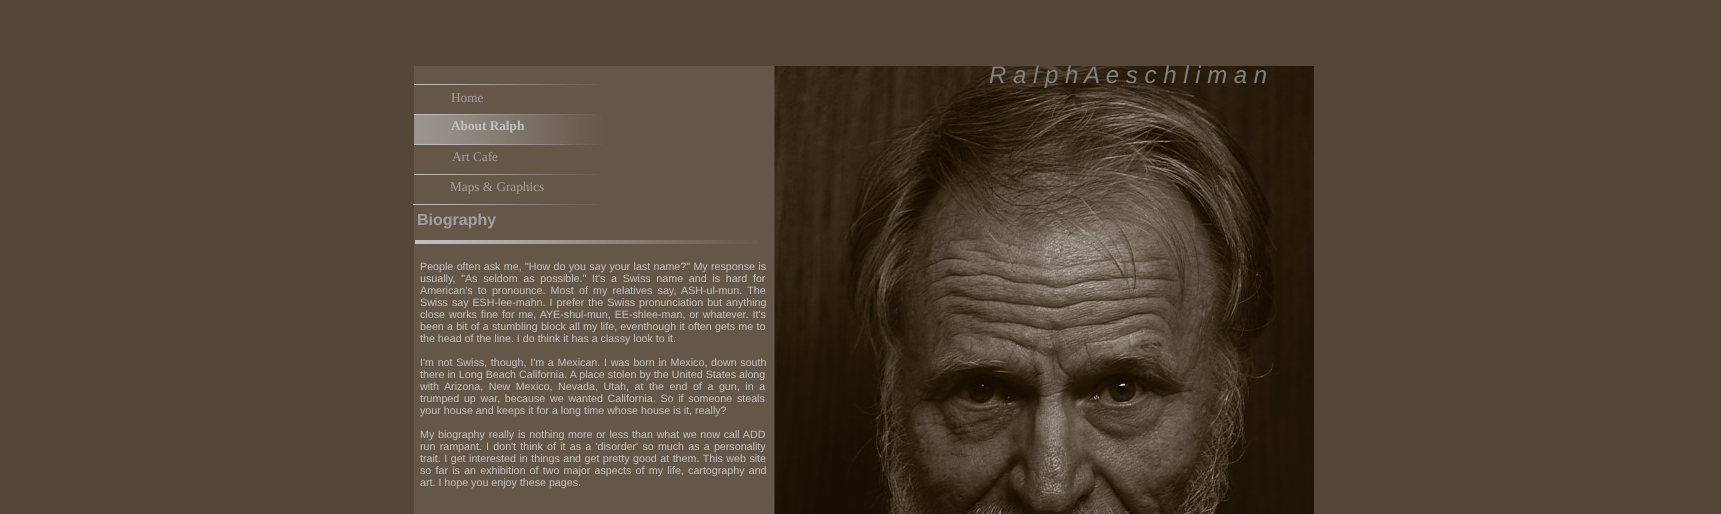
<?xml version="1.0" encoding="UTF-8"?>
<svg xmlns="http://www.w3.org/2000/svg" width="1721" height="514">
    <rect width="100%" height="100%" fill="#544737"/>
    <image x="414" y="66" width="900" height="448" href="img_01.png"/>
    <text x="989" y="83" font-family="Liberation Sans" font-size="24" font-style="italic" fill="#808080">R a l p h</text>
    <text x="1084" y="83" font-family="Liberation Sans" font-size="24" font-style="italic" fill="#808080">A e s c h l i m a n</text>
    <image x="414" y="84" width="184" height="1" href="img_02.png"/>
    <text x="451" y="102" font-family="Liberation Serif" font-size="13.25" fill="#A0A0A0">Home</text>
    <image x="414" y="114" width="184" height="1" href="img_02.png"/>
    <image x="414" y="115" width="188" height="30" href="img_03.png"/>
    <text x="451" y="130" font-family="Liberation Serif" font-size="13.25" font-weight="700" fill="#C0C0C0">About Ralph</text>
    <text x="452" y="161" font-family="Liberation Serif" font-size="13.25" fill="#A0A0A0">Art Cafe</text>
    <image x="414" y="174" width="184" height="1" href="img_02.png"/>
    <text x="450" y="191" font-family="Liberation Serif" font-size="13.25" fill="#A0A0A0">Maps &amp; Graphics</text>
    <image x="413" y="204" width="184" height="1" href="img_02.png"/>
    <text x="417" y="225" font-family="Liberation Sans" font-size="16" font-weight="700" fill="#A0A0A0">Biography</text>
    <image x="415" y="240" width="344" height="4" href="img_04.png"/>
    <text font-family="Liberation Sans" font-size="10.7" fill="#C0C0C0">
        <tspan x="420" y="270" word-spacing="0.4">People often ask me, "How do you say your last name?" My response is</tspan>
        <tspan x="420" y="282" word-spacing="2.75">usually, "As seldom as possible." It's a Swiss name and is hard for</tspan>
        <tspan x="420" y="294" word-spacing="2.25">American's to pronounce. Most of my relatives say, ASH-ul-mun. The</tspan>
        <tspan x="420" y="306" word-spacing="1">Swiss say ESH-lee-mahn. I prefer the Swiss pronunciation but anything</tspan>
        <tspan x="420" y="318" word-spacing="1">close works fine for me, AYE-shul-mun, EE-shlee-man, or whatever. It's</tspan>
        <tspan x="420" y="330" word-spacing="0.25">been a bit of a stumbling block all my life, eventhough it often gets me to</tspan>
        <tspan x="420" y="342">the head of the line. I do think it has a classy look to it.</tspan>
    </text>
    <text font-family="Liberation Sans" font-size="10.7" fill="#C0C0C0">
        <tspan x="420" y="366" word-spacing="0.75">I'm not Swiss, though, I'm a Mexican. I was born in Mexico, down south</tspan>
        <tspan x="420" y="378" word-spacing="0.1">there in Long Beach California. A place stolen by the United States along</tspan>
        <tspan x="420" y="390" word-spacing="2.6">with Arizona, New Mexico, Nevada, Utah, at the end of a gun, in a</tspan>
        <tspan x="420" y="402" word-spacing="1.75">trumped up war, because we wanted California. So if someone steals</tspan>
        <tspan x="420" y="414">your house and keeps it for a long time whose house is it, really?</tspan>
    </text>
    <text font-family="Liberation Sans" font-size="10.7" fill="#C0C0C0">
        <tspan x="420" y="438" word-spacing="0.75">My biography really is nothing more or less than what we now call ADD</tspan>
        <tspan x="420" y="450" word-spacing="1.25">run rampant. I don't think of it as a 'disorder' so much as a personality</tspan>
        <tspan x="420" y="462" word-spacing="0.5">trait. I get interested in things and get pretty good at them. This web site</tspan>
        <tspan x="420" y="474" word-spacing="1.25">so far is an exhibition of two major aspects of my life, cartography and</tspan>
        <tspan x="420" y="486">art. I hope you enjoy these pages.</tspan>
    </text>
</svg>
